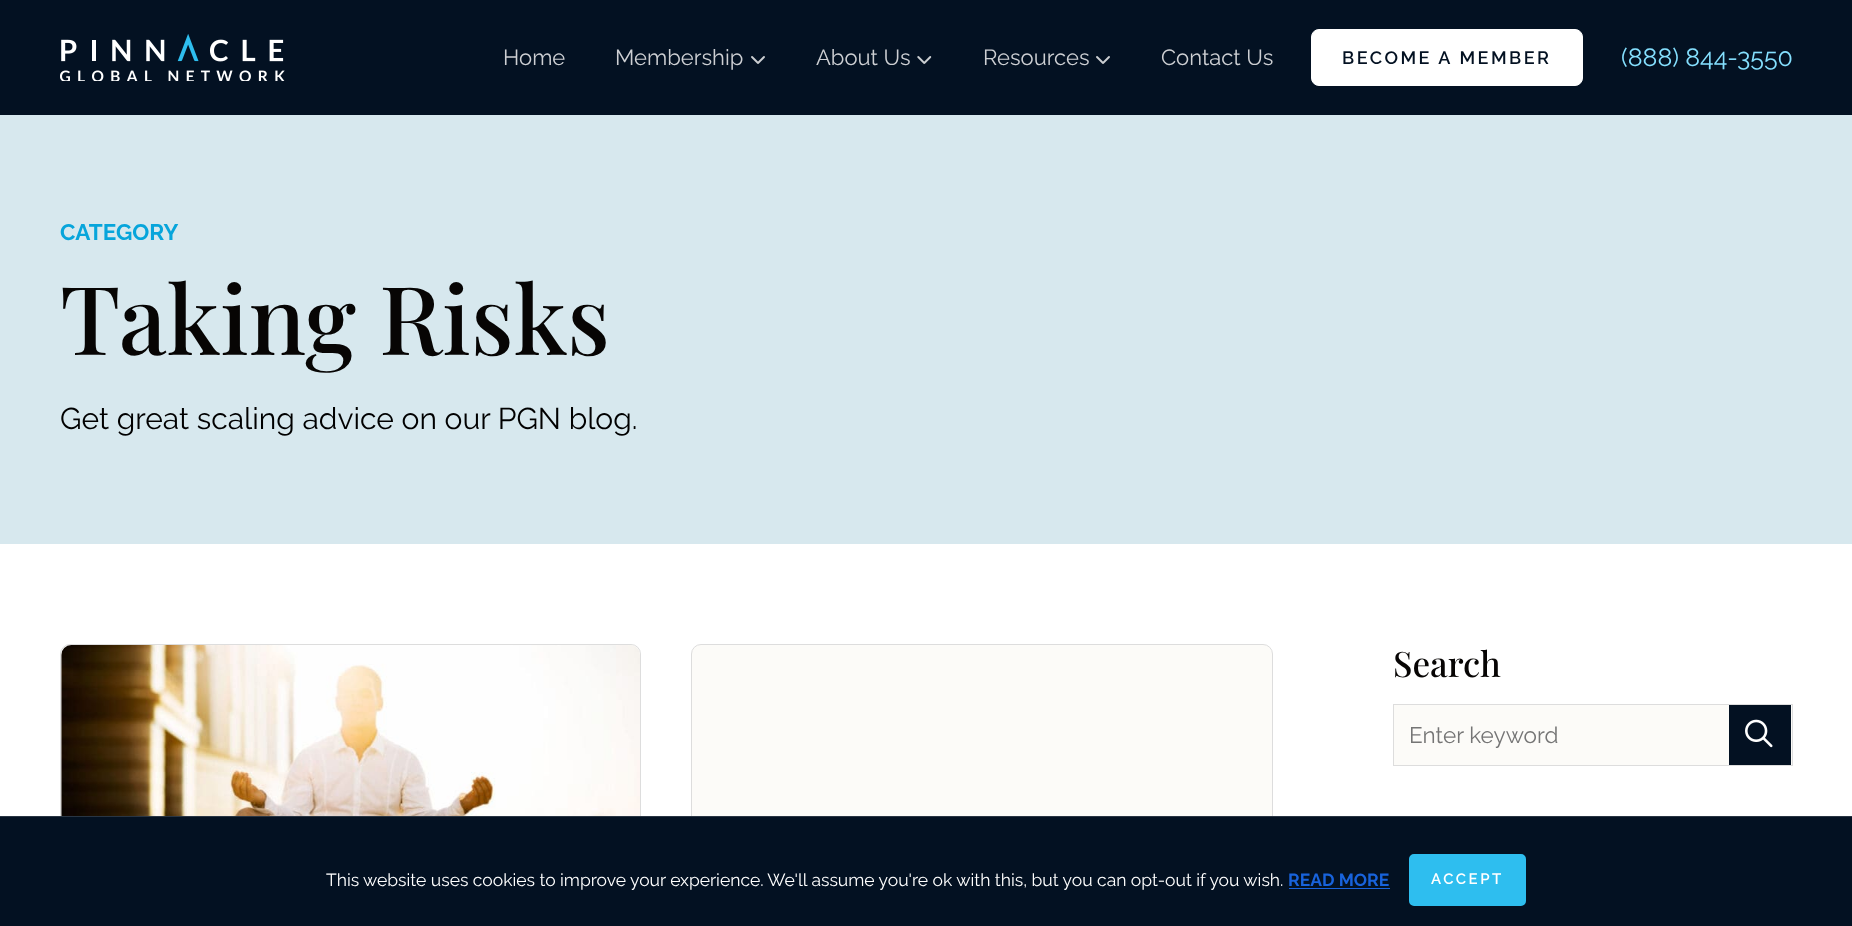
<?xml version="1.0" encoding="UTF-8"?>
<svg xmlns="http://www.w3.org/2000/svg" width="1852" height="926">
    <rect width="100%" height="100%" fill="#FFFFFF"/>
    <rect x="0" y="0" width="1852" height="115" fill="#031122"/>
    <image x="60" y="34" width="225" height="47" href="img_01.png"/>
    <text x="503" y="65" font-family="Raleway" font-size="22" fill="#CDCFD3">Home</text>
    <text x="615" y="65" font-family="Raleway" font-size="22" fill="#CDCFD3">Membership</text>
    <image x="751" y="56" width="14" height="8" href="img_02.png"/>
    <text x="816" y="65" font-family="Raleway" font-size="22" fill="#CDCFD3">About Us</text>
    <image x="917" y="56" width="15" height="8" href="img_03.png"/>
    <text x="983" y="65" font-family="Raleway" font-size="22" fill="#CDCFD3">Resources</text>
    <image x="1096" y="56" width="14" height="8" href="img_02.png"/>
    <text x="1161" y="65" font-family="Raleway" font-size="22" fill="#CDCFD3">Contact Us</text>
    <rect x="1311.5" y="29.5" width="271" height="56" rx="7.5" fill="#FFFFFF" stroke="#FFFFFF"/>
    <text x="1342" y="64" font-family="Raleway" font-size="18" font-weight="600" letter-spacing="2.5" fill="#031122">BECOME A MEMBER</text>
    <text x="1621" y="66" font-family="Raleway" font-size="25" fill="#85E0FF">(888) 844-3550</text>
    <rect x="0" y="115" width="1852" height="429" fill="#D7E8EE"/>
    <text x="60" y="240" font-family="Raleway" font-size="22.5" font-weight="700" fill="#07A5DB">CATEGORY</text>
    <text x="60" y="355" font-family="Playfair Display" font-size="95" font-weight="500" fill="#070504">Taking Risks</text>
    <text x="60" y="429" font-family="Raleway" font-size="30" fill="#000000">Get great scaling advice on our PGN blog.</text>
    <rect x="60.5" y="644.5" width="580" height="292" rx="9.5" fill="#FCFBF8" stroke="#DDDDDD"/>
    <image x="61" y="645" width="579" height="171" href="img_04.png"/>
    <rect x="691.5" y="644.5" width="581" height="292" rx="9.5" fill="#FCFBF8" stroke="#DDDDDD"/>
    <text x="1393" y="677" font-family="Playfair Display" font-size="35" font-weight="500" fill="#070504">Search</text>
    <rect x="1393.5" y="704.5" width="399" height="61" fill="#FCFBF8" stroke="#DDDDDD"/>
    <text x="1409" y="743" font-family="Raleway" font-size="22.5" fill="#757575">Enter keyword</text>
    <rect x="1729" y="705" width="62" height="60" fill="#031122"/>
    <image x="1745" y="719" width="28" height="29" href="img_05.png"/>
    <rect x="0" y="817" width="1852" height="109" fill="#031122"/>
    <rect x="0" y="816" width="1852" height="1" fill="#293543"/>
    <text x="326" y="886" font-family="Raleway" font-size="17.5" fill="#FFFFFF">This website uses cookies to improve your experience. We'll assume you're ok with this, but you can opt-out if you wish.</text>
    <text x="1288" y="886" font-family="Raleway" font-size="17.5" font-weight="700" fill="#1863DC">READ MORE</text>
    <rect x="1289" y="888" width="101" height="1" fill="#1863DC"/>
    <rect x="1410.5" y="855.5" width="114" height="49" rx="3.5" fill="#2EBEEF" stroke="#2EBEEF" stroke-width="3"/>
    <text x="1431" y="884" font-family="Raleway" font-size="15" font-weight="600" letter-spacing="2.5" fill="#FFFFFF">ACCEPT</text>
</svg>
